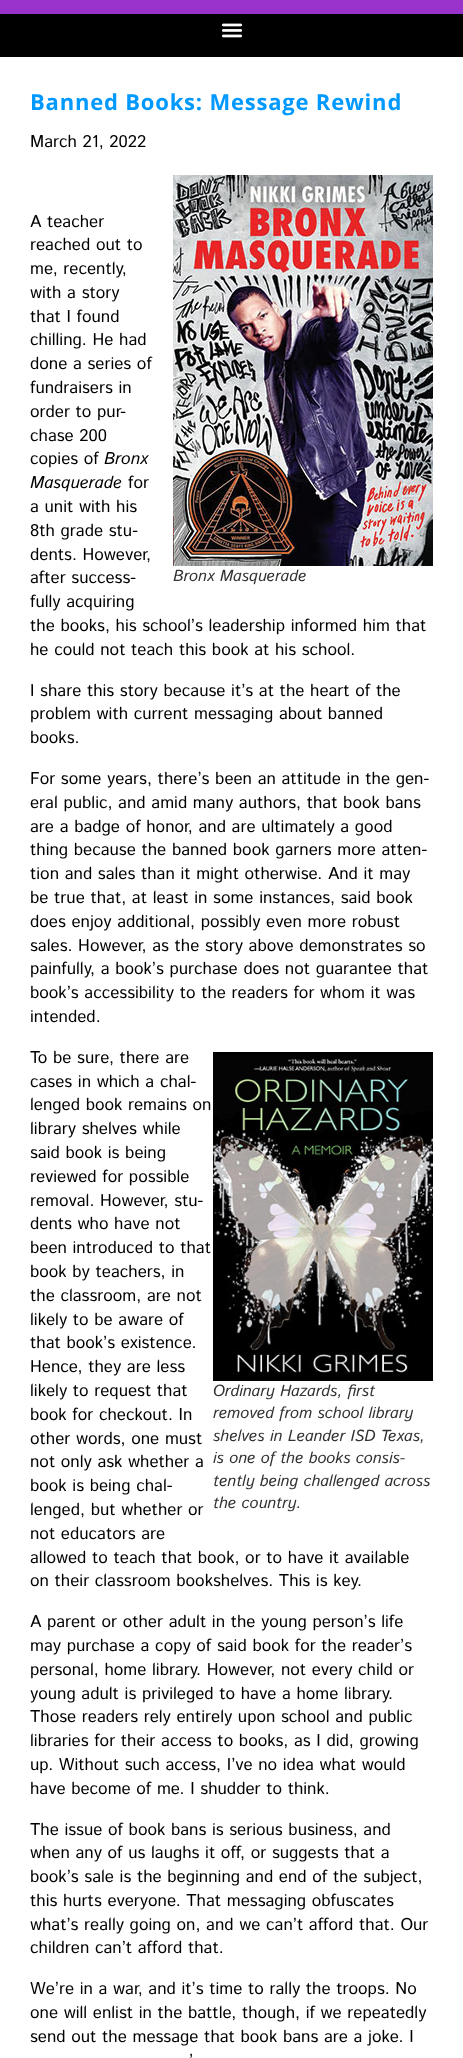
<?xml version="1.0" encoding="UTF-8"?>
<svg xmlns="http://www.w3.org/2000/svg" width="463" height="2058">
    <rect width="100%" height="100%" fill="#9933CC"/>
    <rect x="0" y="14" width="463" height="43" fill="#000000"/>
    <image x="221" y="23" width="22" height="15" href="img_01.png"/>
    <rect x="0" y="57" width="463" height="2001" fill="#FFFFFF"/>
    <text x="30" y="110" font-family="Open Sans" font-size="22" font-weight="700" letter-spacing="0.8" fill="#0099FF">Banned Books: Message Rewind</text>
    <text x="30" y="147" font-family="Istok Web" font-size="17" fill="#000000">March 21, 2022</text>
    <text font-family="Istok Web" font-size="17" fill="#000000">
        <tspan x="30" y="227">A teacher</tspan>
        <tspan x="30" y="250">reached out to</tspan>
        <tspan x="30" y="274">me, recently,</tspan>
        <tspan x="30" y="298">with a story</tspan>
        <tspan x="30" y="322">that I found</tspan>
        <tspan x="30" y="345">chilling. He had</tspan>
        <tspan x="30" y="369">done a series of</tspan>
        <tspan x="30" y="393">fundraisers in</tspan>
        <tspan x="30" y="417">order to pur-</tspan>
        <tspan x="30" y="441">chase 200</tspan>
        <tspan x="30" y="464">copies of</tspan>
    </text>
    <text x="104" y="464" font-family="Istok Web" font-size="17" font-style="italic" fill="#000000">Bronx</text>
    <text x="30" y="488" font-family="Istok Web" font-size="17" font-style="italic" fill="#000000">Masquerade</text>
    <text x="128" y="488" font-family="Istok Web" font-size="17" fill="#000000">for</text>
    <text font-family="Istok Web" font-size="17" fill="#000000">
        <tspan x="30" y="512">a unit with his</tspan>
        <tspan x="30" y="536">8th grade stu-</tspan>
        <tspan x="30" y="560">dents. However,</tspan>
        <tspan x="30" y="583">after success-</tspan>
        <tspan x="30" y="607">fully acquiring</tspan>
        <tspan x="30" y="631">the books, his school’s leadership informed him that</tspan>
        <tspan x="30" y="655">he could not teach this book at his school.</tspan>
    </text>
    <image x="173" y="175" width="260" height="391" href="img_02.png"/>
    <text x="173" y="581" font-family="Istok Web" font-size="16" font-style="italic" fill="#333333">Bronx Masquerade</text>
    <text font-family="Istok Web" font-size="17" fill="#000000">
        <tspan x="30" y="696">I share this story because it’s at the heart of the</tspan>
        <tspan x="30" y="719">problem with current messaging about banned</tspan>
        <tspan x="30" y="743">books.</tspan>
    </text>
    <text font-family="Istok Web" font-size="17" fill="#000000">
        <tspan x="30" y="784">For some years, there’s been an attitude in the gen-</tspan>
        <tspan x="30" y="808">eral public, and amid many authors, that book bans</tspan>
        <tspan x="30" y="832">are a badge of honor, and are ultimately a good</tspan>
        <tspan x="30" y="855">thing because the banned book garners more atten-</tspan>
        <tspan x="30" y="879">tion and sales than it might otherwise. And it may</tspan>
        <tspan x="30" y="903">be true that, at least in some instances, said book</tspan>
        <tspan x="30" y="927">does enjoy additional, possibly even more robust</tspan>
        <tspan x="30" y="951">sales. However, as the story above demonstrates so</tspan>
        <tspan x="30" y="974">painfully, a book’s purchase does not guarantee that</tspan>
        <tspan x="30" y="998">book’s accessibility to the readers for whom it was</tspan>
        <tspan x="30" y="1022">intended.</tspan>
    </text>
    <text font-family="Istok Web" font-size="17" fill="#000000">
        <tspan x="30" y="1063">To be sure, there are</tspan>
        <tspan x="30" y="1087">cases in which a chal-</tspan>
        <tspan x="30" y="1110">lenged book remains on</tspan>
        <tspan x="30" y="1134">library shelves while</tspan>
        <tspan x="30" y="1158">said book is being</tspan>
        <tspan x="30" y="1182">reviewed for possible</tspan>
        <tspan x="30" y="1206">removal. However, stu-</tspan>
        <tspan x="30" y="1229">dents who have not</tspan>
        <tspan x="30" y="1253">been introduced to that</tspan>
        <tspan x="30" y="1277">book by teachers, in</tspan>
        <tspan x="30" y="1301">the classroom, are not</tspan>
        <tspan x="30" y="1325">likely to be aware of</tspan>
        <tspan x="30" y="1348">that book’s existence.</tspan>
        <tspan x="30" y="1372">Hence, they are less</tspan>
        <tspan x="30" y="1396">likely to request that</tspan>
        <tspan x="30" y="1420">book for checkout. In</tspan>
        <tspan x="30" y="1444">other words, one must</tspan>
        <tspan x="30" y="1467">not only ask whether a</tspan>
        <tspan x="30" y="1491">book is being chal-</tspan>
        <tspan x="30" y="1515">lenged, but whether or</tspan>
        <tspan x="30" y="1539">not educators are</tspan>
        <tspan x="30" y="1563">allowed to teach that book, or to have it available</tspan>
        <tspan x="30" y="1586">on their classroom bookshelves. This is key.</tspan>
    </text>
    <image x="213" y="1052" width="220" height="329" href="img_03.png"/>
    <text font-family="Istok Web" font-size="16" font-style="italic" fill="#333333">
        <tspan x="213" y="1396">Ordinary Hazards, first</tspan>
        <tspan x="213" y="1418">removed from school library</tspan>
        <tspan x="213" y="1441">shelves in Leander ISD Texas,</tspan>
        <tspan x="213" y="1463">is one of the books consis-</tspan>
        <tspan x="213" y="1486">tently being challenged across</tspan>
        <tspan x="213" y="1508">the country.</tspan>
    </text>
    <text font-family="Istok Web" font-size="17" fill="#000000">
        <tspan x="30" y="1627">A parent or other adult in the young person’s life</tspan>
        <tspan x="30" y="1651">may purchase a copy of said book for the reader’s</tspan>
        <tspan x="30" y="1675">personal, home library. However, not every child or</tspan>
        <tspan x="30" y="1699">young adult is privileged to have a home library.</tspan>
        <tspan x="30" y="1722">Those readers rely entirely upon school and public</tspan>
        <tspan x="30" y="1746">libraries for their access to books, as I did, growing</tspan>
        <tspan x="30" y="1770">up. Without such access, I’ve no idea what would</tspan>
        <tspan x="30" y="1794">have become of me. I shudder to think.</tspan>
    </text>
    <text font-family="Istok Web" font-size="17" fill="#000000">
        <tspan x="30" y="1835">The issue of book bans is serious business, and</tspan>
        <tspan x="30" y="1858">when any of us laughs it off, or suggests that a</tspan>
        <tspan x="30" y="1882">book’s sale is the beginning and end of the subject,</tspan>
        <tspan x="30" y="1906">this hurts everyone. That messaging obfuscates</tspan>
        <tspan x="30" y="1930">what’s really going on, and we can’t afford that. Our</tspan>
        <tspan x="30" y="1953">children can’t afford that.</tspan>
    </text>
    <text font-family="Istok Web" font-size="17" fill="#000000">
        <tspan x="30" y="1994">We’re in a war, and it’s time to rally the troops. No</tspan>
        <tspan x="30" y="2018">one will enlist in the battle, though, if we repeatedly</tspan>
        <tspan x="30" y="2042">send out the message that book bans are a joke. I</tspan>
    </text>
    <text x="189" y="2066" font-family="Istok Web" font-size="17" fill="#000000">’</text>
</svg>
